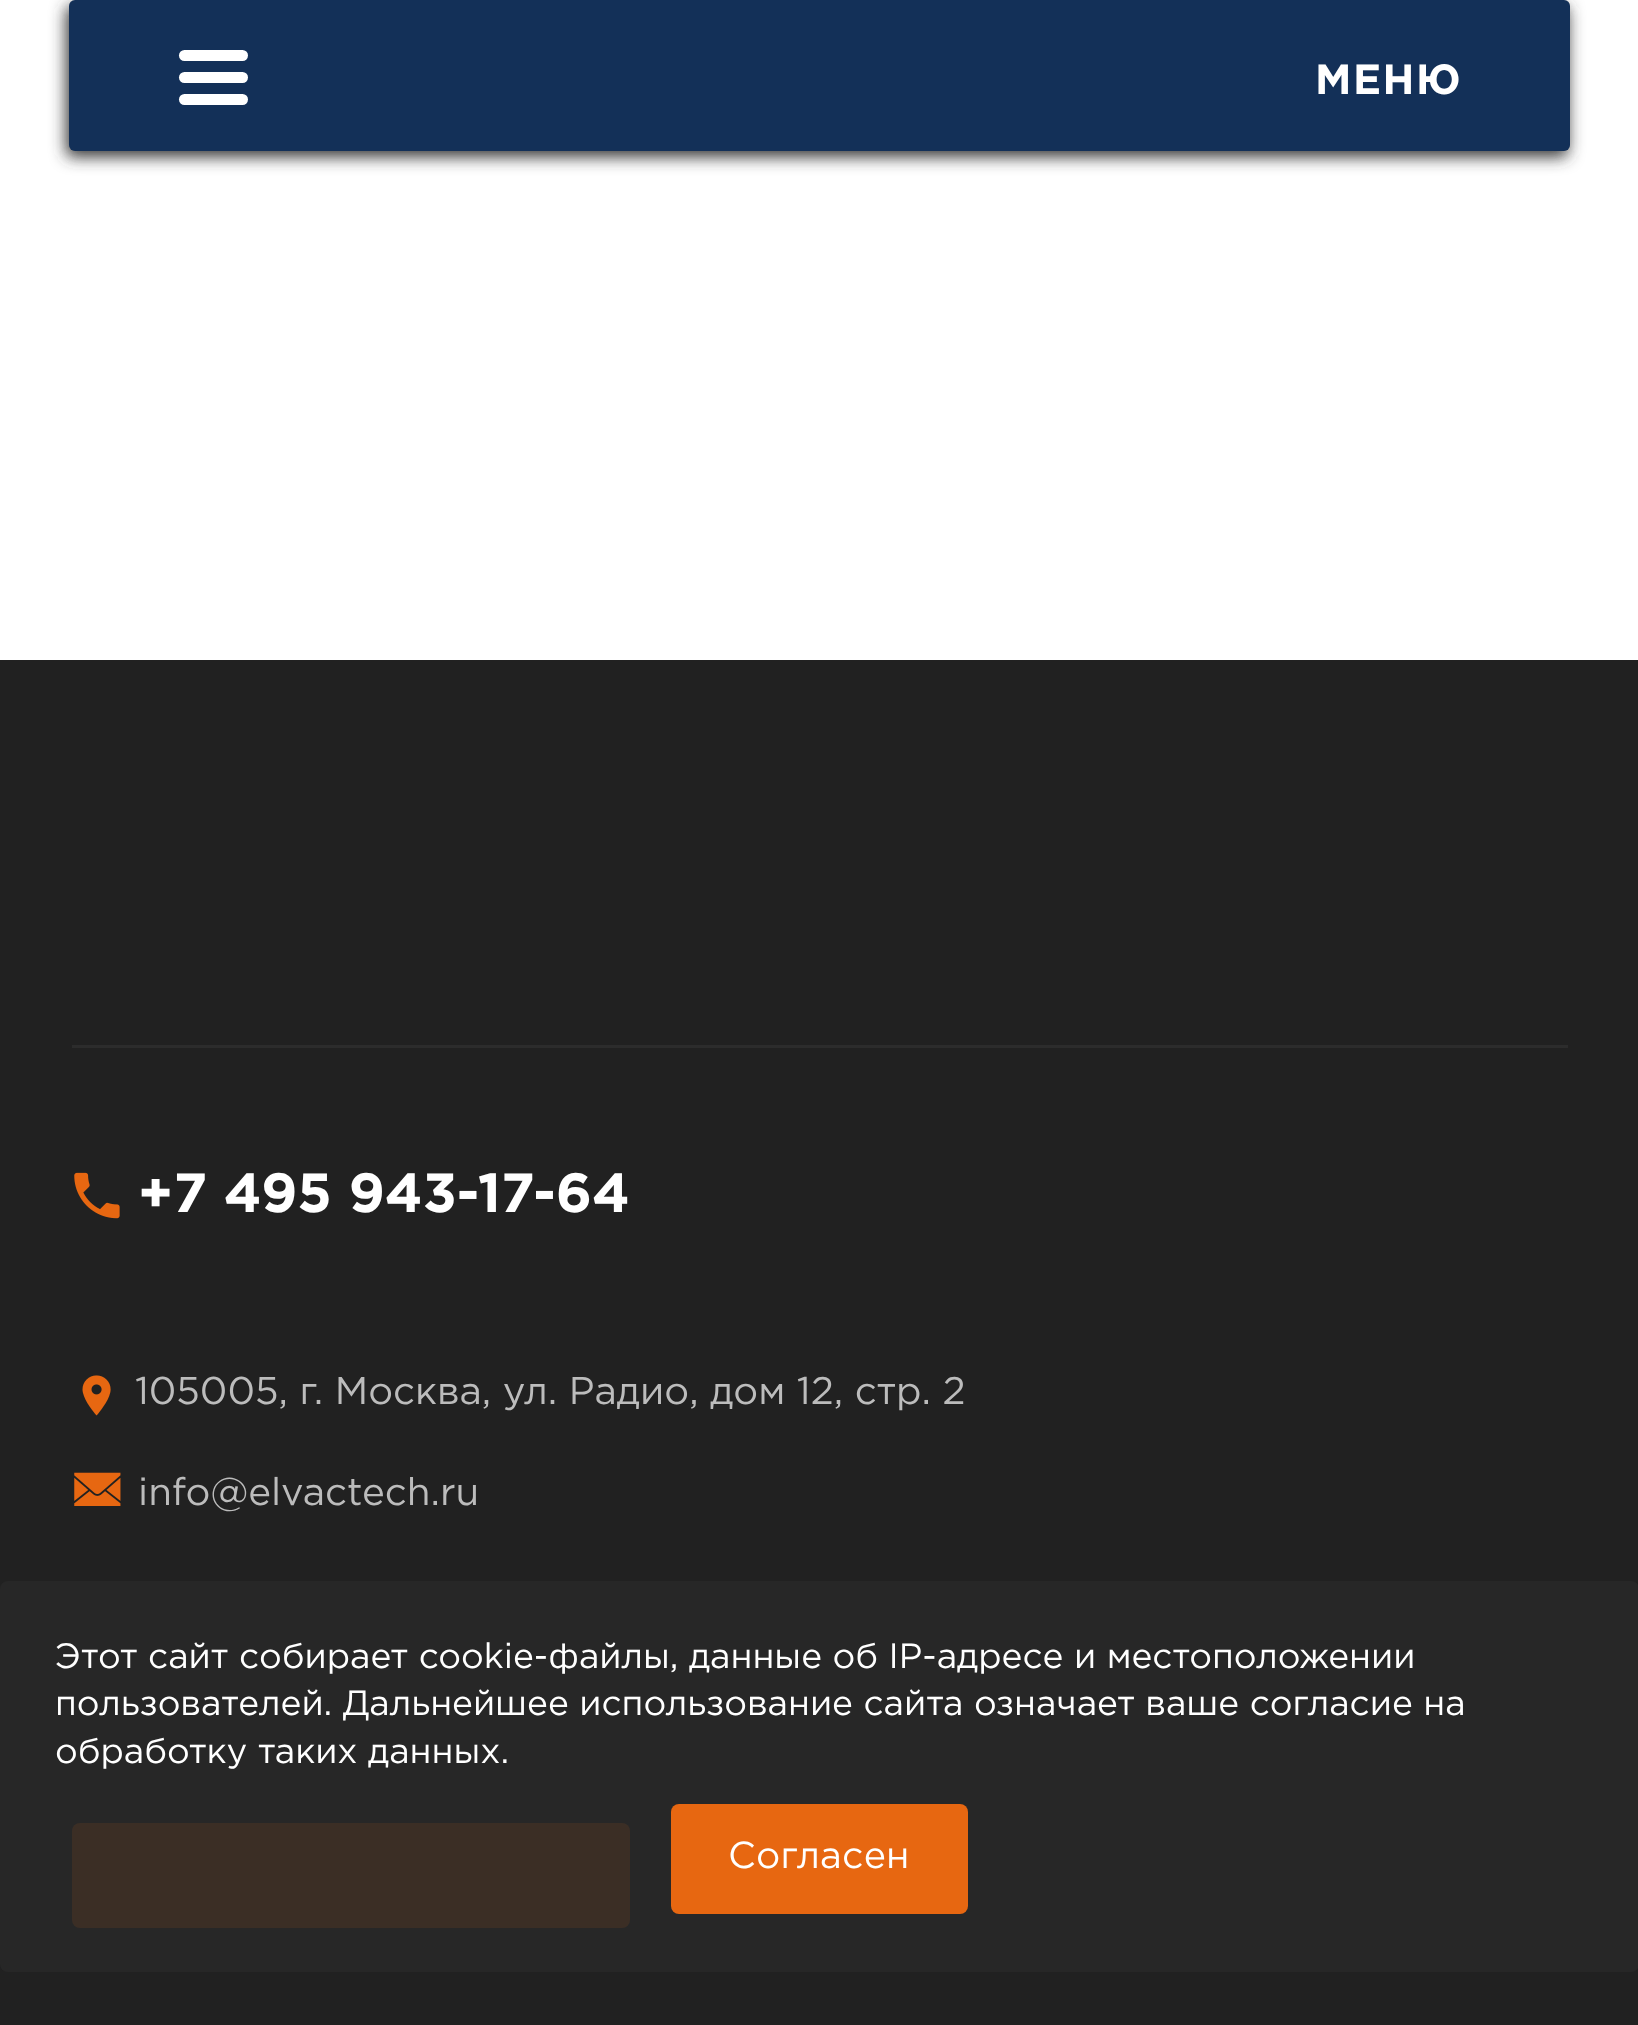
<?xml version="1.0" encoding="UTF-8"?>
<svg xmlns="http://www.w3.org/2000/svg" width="1638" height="2025">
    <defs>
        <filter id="blur1" x="-50%" y="-200%" width="200%" height="500%"><feGaussianBlur stdDeviation="8"/></filter>
    </defs>
    <rect width="100%" height="100%" fill="#FFFFFF"/>
    <rect x="73.5" y="-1.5" width="1493" height="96" fill="none" stroke="#F9F9F9" stroke-width="3"/>
    <rect x="66" y="6" width="1502" height="151" rx="6" fill="#373737" filter="url(#blur1)"/>
    <rect x="69" y="0" width="1501" height="151" rx="6" fill="#133058"/>
    <rect x="179" y="50" width="69" height="11" rx="5.5" fill="#FFFFFF"/>
    <rect x="179" y="72" width="69" height="11" rx="5.5" fill="#FFFFFF"/>
    <rect x="179" y="94" width="69" height="11" rx="5.5" fill="#FFFFFF"/>
    <text x="1315" y="94" font-family="Gotham" font-size="42" font-weight="700" letter-spacing="1.5" fill="#FFFFFF">МЕНЮ</text>
    <rect x="0" y="660" width="1638" height="1365" fill="#212121"/>
    <rect x="72" y="1045" width="1496" height="3" fill="#2C2C2C"/>
    <image x="74" y="1172" width="46" height="47" href="img_01.png"/>
    <text x="138" y="1212" font-family="Gotham" font-size="55" font-weight="700" fill="#FFFFFF">+7 495 943-17-64</text>
    <image x="82" y="1375" width="29" height="41" href="img_02.png"/>
    <text x="135" y="1404" font-family="Gotham" font-size="38.5" fill="#BCBCBC">105005, г. Москва, ул. Радио, дом 12, стр. 2</text>
    <image x="74" y="1472" width="47" height="34" href="img_03.png"/>
    <text x="138" y="1505" font-family="Gotham" font-size="38.5" fill="#BCBCBC">info@elvactech.ru</text>
    <rect x="72" y="1823" width="558" height="105" rx="8" fill="#E76711"/>
    <rect x="0" y="1581" width="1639" height="391" rx="8" fill="#282828" fill-opacity="0.9"/>
    <text font-family="Gotham" font-size="35.2" fill="#FFFFFF">
        <tspan x="55" y="1668">Этот сайт собирает cookie-файлы, данные об IP-адресе и местоположении</tspan>
        <tspan x="55" y="1715">пользователей. Дальнейшее использование сайта означает ваше согласие на</tspan>
        <tspan x="55" y="1763">обработку таких данных.</tspan>
    </text>
    <rect x="671" y="1804" width="297" height="110" rx="8" fill="#E76711"/>
    <text x="728" y="1868" font-family="Gotham" font-size="37.5" letter-spacing="0.25" fill="#FFFFFF">Cогласен</text>
</svg>
